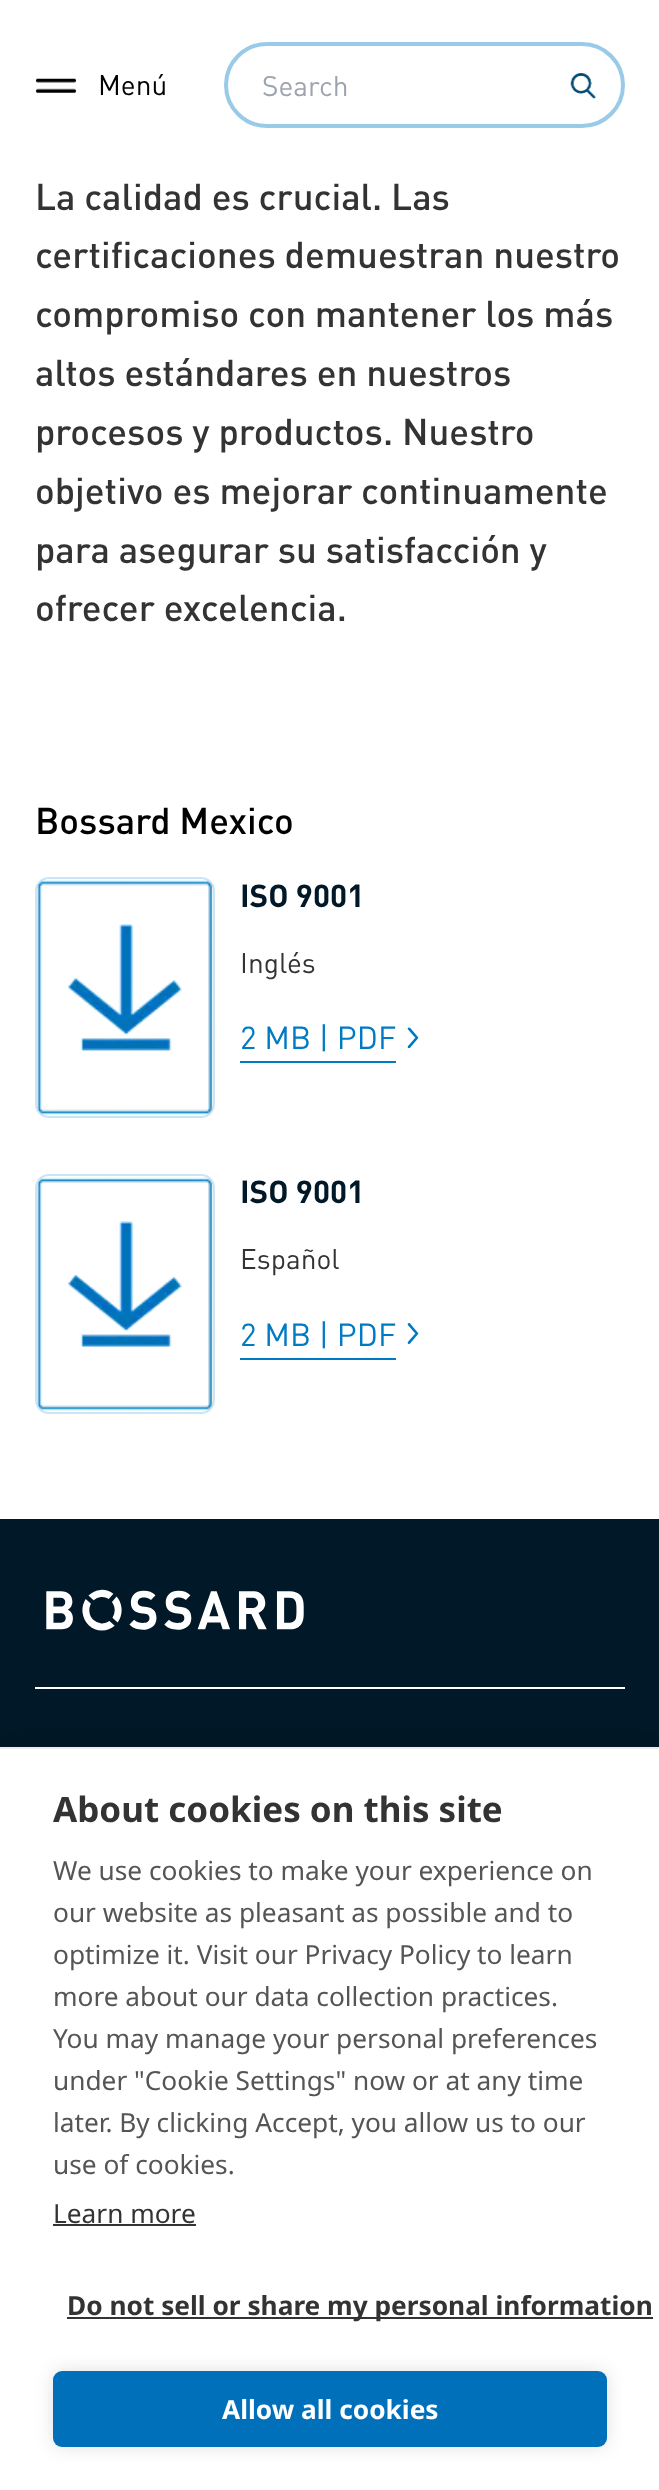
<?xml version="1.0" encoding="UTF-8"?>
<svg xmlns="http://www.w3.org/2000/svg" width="659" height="2490">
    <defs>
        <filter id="blur1" x="-50%" y="-200%" width="200%" height="500%"><feGaussianBlur stdDeviation="17.5"/></filter>
        <filter id="blur2" x="-50%" y="-200%" width="200%" height="500%"><feGaussianBlur stdDeviation="9"/></filter>
    </defs>
    <rect width="100%" height="100%" fill="#FFFFFF"/>
    <image x="35" y="78" width="42" height="15" href="img_01.png"/>
    <text x="98" y="95" font-family="DIN" font-size="28" fill="#000000">Menú</text>
    <rect x="226" y="44" width="397" height="82" rx="41" fill="none" stroke="#99CAE7" stroke-width="4"/>
    <text x="262" y="96" font-family="DIN" font-size="28" fill="#9CA3AF">Search</text>
    <image x="570" y="73" width="26" height="26" href="img_02.png"/>
    <text font-family="DIN" font-size="36.75" font-weight="500" fill="#333333">
        <tspan x="35" y="210">La calidad es crucial. Las</tspan>
        <tspan x="35" y="268">certificaciones demuestran nuestro</tspan>
        <tspan x="35" y="327">compromiso con mantener los más</tspan>
        <tspan x="35" y="386">altos estándares en nuestros</tspan>
        <tspan x="35" y="445">procesos y productos. Nuestro</tspan>
        <tspan x="35" y="504">objetivo es mejorar continuamente</tspan>
        <tspan x="35" y="563">para asegurar su satisfacción y</tspan>
        <tspan x="35" y="621">ofrecer excelencia.</tspan>
    </text>
    <text x="35" y="834" font-family="DIN" font-size="36.75" font-weight="500" fill="#000000">Bossard Mexico</text>
    <rect x="36" y="878" width="178" height="239" rx="13" fill="none" stroke="#CCE4F3" stroke-width="2"/>
    <image x="37" y="880" width="176" height="236" href="img_03.png"/>
    <text x="240" y="907" font-family="DIN" font-size="31.5" font-weight="700" fill="#001827">ISO 9001</text>
    <text x="240" y="973" font-family="DIN" font-size="28" fill="#333333">Inglés</text>
    <text x="240" y="1049" font-family="DIN" font-size="31.5" fill="#007AC3">2 MB | PDF</text>
    <rect x="240" y="1061" width="156" height="2" fill="#007AC3"/>
    <image x="407" y="1027" width="12" height="21" href="img_04.png"/>
    <rect x="36" y="1175" width="178" height="238" rx="13" fill="none" stroke="#CCE4F3" stroke-width="2"/>
    <image x="37" y="1177" width="176" height="234" href="img_05.png"/>
    <text x="240" y="1203" font-family="DIN" font-size="31.5" font-weight="700" fill="#001827">ISO 9001</text>
    <text x="240" y="1269" font-family="DIN" font-size="28" fill="#333333">Español</text>
    <text x="240" y="1346" font-family="DIN" font-size="31.5" fill="#007AC3">2 MB | PDF</text>
    <rect x="240" y="1358" width="156" height="2" fill="#007AC3"/>
    <image x="407" y="1323" width="12" height="21" href="img_06.png"/>
    <rect x="0" y="1519" width="659" height="228" fill="#001827"/>
    <rect x="35" y="1687" width="590" height="2" fill="#FFFFFF"/>
    <image x="46" y="1589" width="258" height="42" href="img_07.png"/>
    <rect x="0" y="1747" width="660" height="743" fill="#000000" fill-opacity="0.1" filter="url(#blur1)"/>
    <rect x="0" y="1749" width="659" height="741" fill="#FFFFFF"/>
    <rect x="0" y="1747" width="659" height="2" fill="#EEEEEE"/>
    <text x="53" y="1822" font-family="Noto Sans" font-size="35" font-weight="700" fill="#333333">About cookies on this site</text>
    <text font-family="Noto Sans" font-size="26.25" fill="#555555">
        <tspan x="53" y="1880">We use cookies to make your experience on</tspan>
        <tspan x="53" y="1922">our website as pleasant as possible and to</tspan>
        <tspan x="53" y="1964">optimize it. Visit our Privacy Policy to learn</tspan>
        <tspan x="53" y="2006">more about our data collection practices.</tspan>
        <tspan x="53" y="2048">You may manage your personal preferences</tspan>
        <tspan x="53" y="2090">under "Cookie Settings" now or at any time</tspan>
        <tspan x="53" y="2132">later. By clicking Accept, you allow us to our</tspan>
        <tspan x="53" y="2174">use of cookies.</tspan>
    </text>
    <text x="53" y="2223" font-family="Noto Sans" font-size="26.25" fill="#333333">Learn more</text>
    <rect x="53" y="2224" width="143" height="2" fill="#333333"/>
    <rect x="67" y="2317" width="586" height="2" fill="#333333"/>
    <text x="67" y="2315" font-family="Noto Sans" font-size="26.25" font-weight="700" fill="#333333">Do not sell or share my personal information</text>
    <rect x="53" y="2371" width="554" height="76" rx="9" fill="#000000" fill-opacity="0.12" filter="url(#blur2)"/>
    <rect x="53" y="2371" width="554" height="76" rx="9" fill="#0070BA"/>
    <text x="222" y="2419" font-family="Noto Sans" font-size="26.25" font-weight="700" fill="#FFFFFF">Allow all cookies</text>
</svg>
